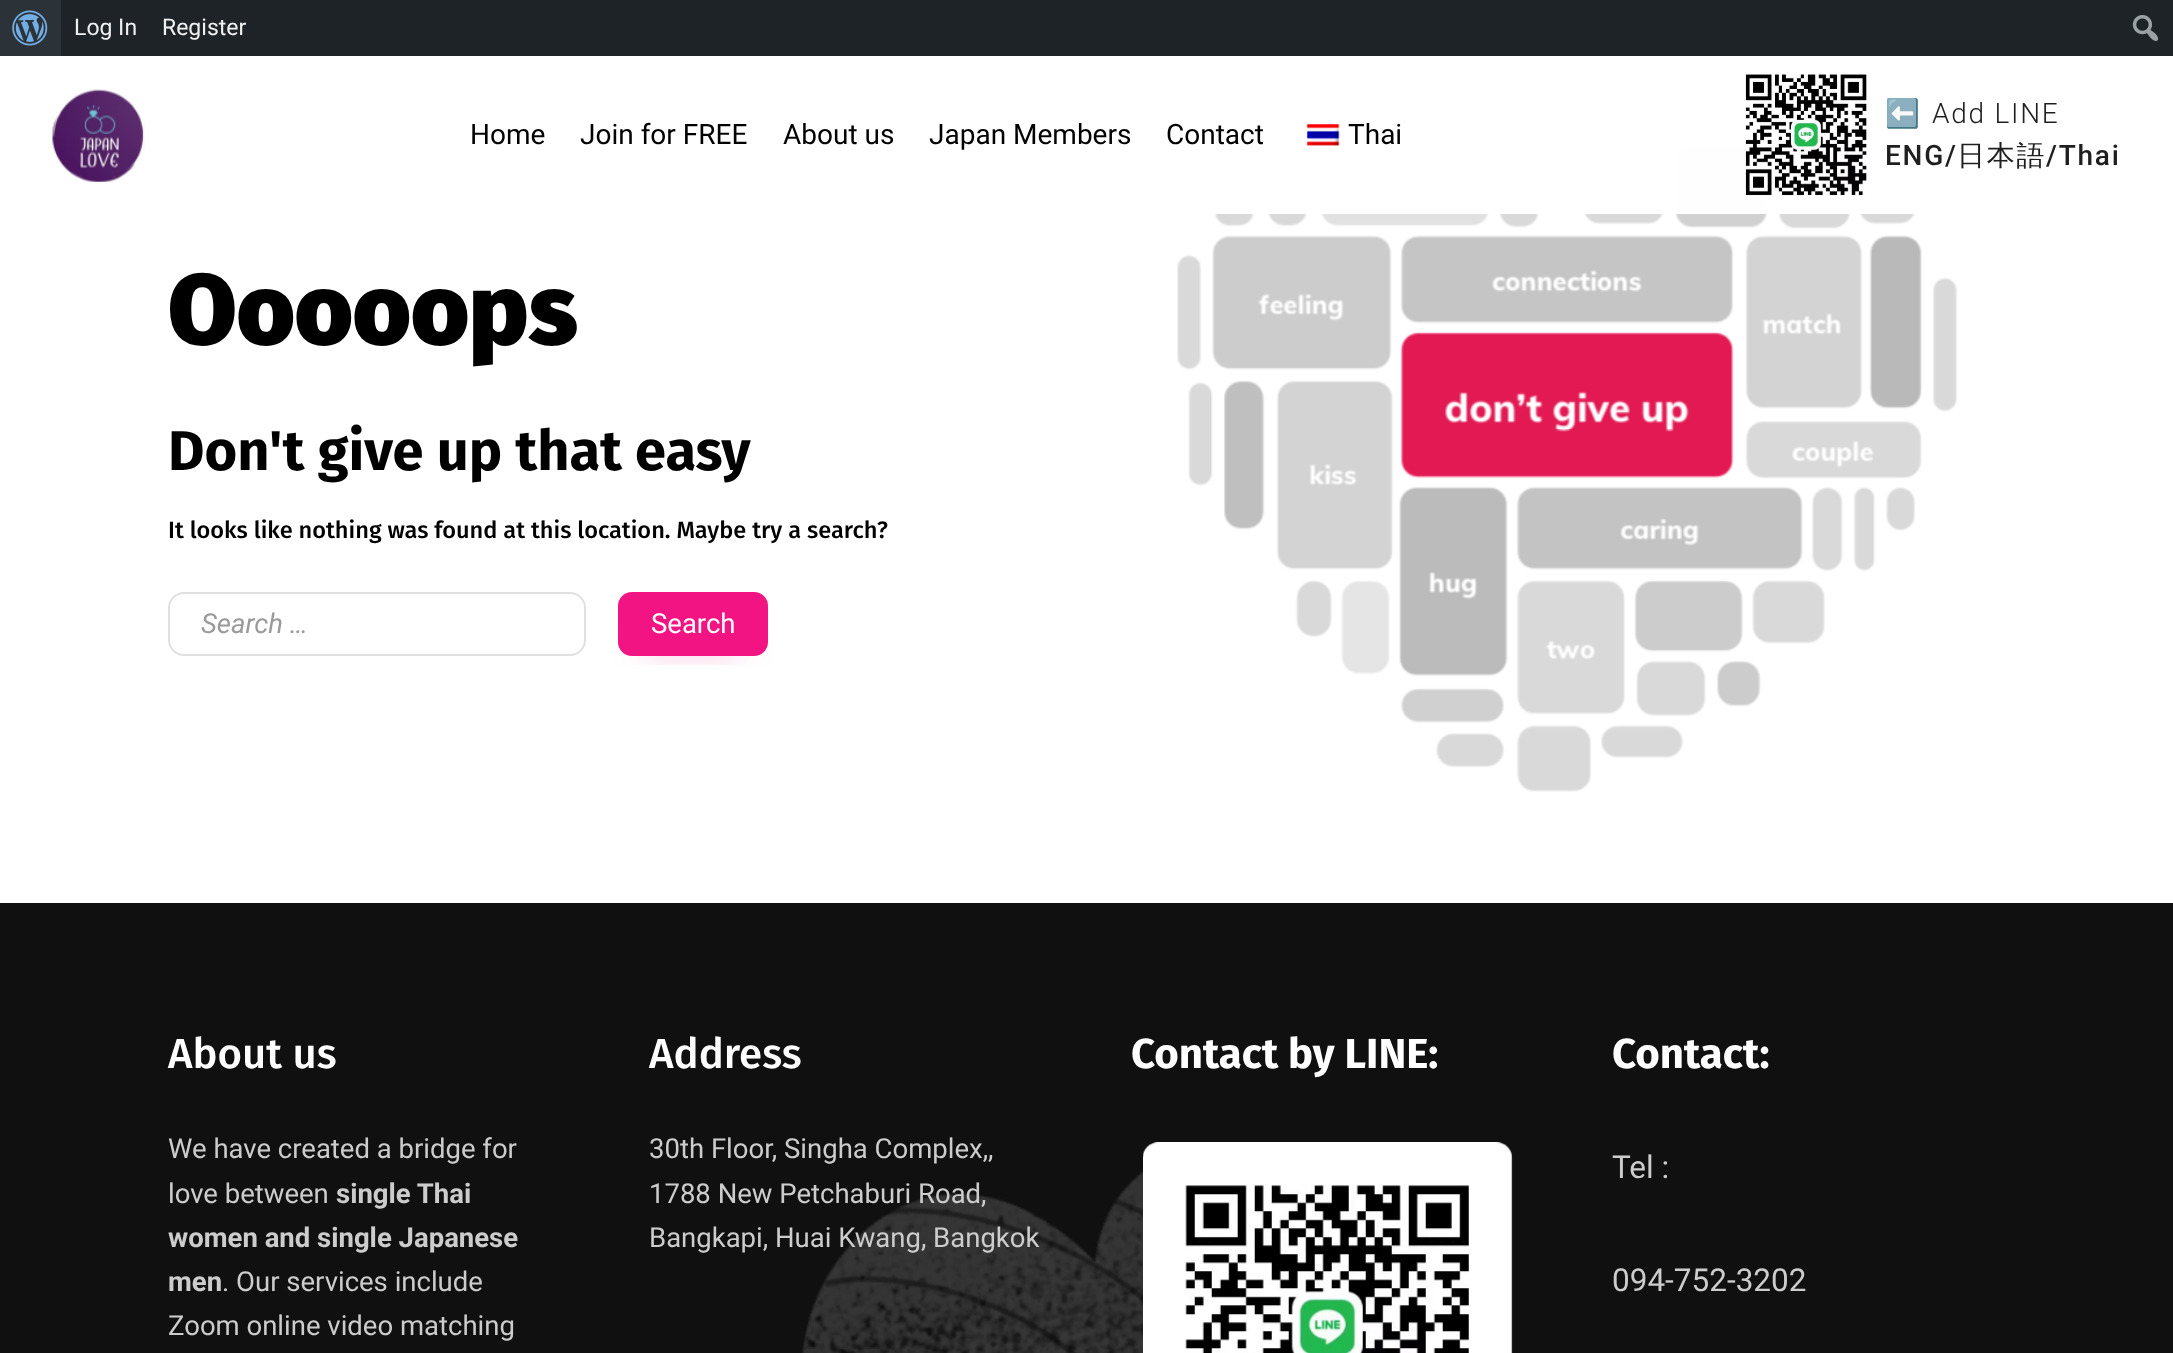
<?xml version="1.0" encoding="UTF-8"?>
<svg xmlns="http://www.w3.org/2000/svg" width="2173" height="1353">
    <defs>
        <filter id="blur1" x="-50%" y="-200%" width="200%" height="500%"><feGaussianBlur stdDeviation="17.5"/></filter>
    </defs>
    <rect width="100%" height="100%" fill="#FFFFFF"/>
    <rect x="61" y="0" width="2112" height="56" fill="#1D2327"/>
    <rect x="0" y="0" width="61" height="56" fill="#2C3338"/>
    <image x="12" y="10" width="36" height="36" href="img_01.png"/>
    <text x="74" y="35" font-family="Roboto" font-size="23" fill="#F0F0F1">Log In</text>
    <text x="162" y="35" font-family="Roboto" font-size="23" fill="#F0F0F1">Register</text>
    <image x="2132" y="15" width="27" height="26" href="img_02.png"/>
    <image x="1177" y="144" width="781" height="648" href="img_06.png"/>
    <rect x="1213" y="144" width="703" height="70" fill="#FFFFFF" fill-opacity="0.98"/>
    <image x="52" y="89" width="93" height="93" href="img_03.png"/>
    <text x="470" y="144" font-family="Roboto" font-size="28" fill="#000000">Home</text>
    <text x="580" y="144" font-family="Roboto" font-size="28" fill="#000000">Join for FREE</text>
    <text x="783" y="144" font-family="Roboto" font-size="28" fill="#000000">About us</text>
    <text x="929" y="144" font-family="Roboto" font-size="28" fill="#000000">Japan Members</text>
    <text x="1166" y="144" font-family="Roboto" font-size="28" fill="#000000">Contact</text>
    <image x="1307" y="124" width="33" height="22" href="img_04.png"/>
    <text x="1348" y="144" font-family="Roboto" font-size="28" fill="#000000">Thai</text>
    <text x="1885" y="123" font-family="Noto Color Emoji" font-size="28" letter-spacing="1.75" fill="#1F1F1F">⬅️</text>
    <image x="1745" y="74" width="140" height="122" href="img_05.png"/>
    <text x="1932" y="123" font-family="Roboto" font-size="28" font-weight="300" letter-spacing="1.75" fill="#1F1F1F">Add LINE</text>
    <text x="1885" y="165" font-family="Roboto" font-size="28" font-weight="500" letter-spacing="1.75" fill="#1F1F1F">ENG/</text>
    <text x="1957" y="165" font-family="WenQuanYi Zen Hei" font-size="28" font-weight="500" letter-spacing="1.75" fill="#1F1F1F">日本語</text>
    <text x="2046" y="165" font-family="Roboto" font-size="28" font-weight="500" letter-spacing="1.75" fill="#1F1F1F">/Thai</text>
    <text x="168" y="344" font-family="Fira Sans" font-size="99.5" font-weight="900" fill="#000000">Ooooops</text>
    <text x="168" y="470" font-family="Fira Sans" font-size="56" font-weight="700" fill="#000000">Don't give up that easy</text>
    <text x="168" y="538" font-family="Fira Sans" font-size="23.6" font-weight="500" fill="#000000">It looks like nothing was found at this location. Maybe try a search?</text>
    <rect x="169" y="593" width="416" height="62" rx="15" fill="none" stroke="#E0E0E0" stroke-width="2"/>
    <text x="201" y="633" font-family="Roboto" font-size="27.5" font-style="italic" fill="#9A9A9A">Search …</text>
    <rect x="646" y="641" width="94" height="8" fill="#E00C76" fill-opacity="0.6" filter="url(#blur1)"/>
    <rect x="619" y="593" width="148" height="62" rx="13" fill="#F21483" stroke="#F21483" stroke-width="2"/>
    <text x="651" y="633" font-family="Roboto" font-size="27.5" fill="#FFFFFF">Search</text>
    <rect x="0" y="903" width="2173" height="450" fill="#101010"/>
    <image x="801" y="1170" width="342" height="183" href="img_07.png"/>
    <text x="168" y="1068" font-family="Fira Sans" font-size="42" font-weight="500" fill="#FFFFFF">About us</text>
    <text font-family="Roboto" font-size="27.5" fill="#CCCCCC">
        <tspan x="168" y="1158">We have created a bridge for</tspan>
        <tspan x="168" y="1203">love between</tspan>
    </text>
    <text x="336" y="1203" font-family="Roboto" font-size="27.5" font-weight="700" fill="#CCCCCC">single Thai</text>
    <text font-family="Roboto" font-size="27.5" font-weight="700" fill="#CCCCCC">
        <tspan x="168" y="1247">women and single Japanese</tspan>
        <tspan x="168" y="1291">men</tspan>
    </text>
    <text x="222" y="1291" font-family="Roboto" font-size="27.5" fill="#CCCCCC">. Our services include</text>
    <text x="168" y="1335" font-family="Roboto" font-size="27.5" fill="#CCCCCC">Zoom online video matching</text>
    <text x="649" y="1068" font-family="Fira Sans" font-size="42" font-weight="500" fill="#FFFFFF">Address</text>
    <text font-family="Roboto" font-size="27.5" fill="#CCCCCC">
        <tspan x="649" y="1158">30th Floor, Singha Complex,,</tspan>
        <tspan x="649" y="1203">1788 New Petchaburi Road,</tspan>
        <tspan x="649" y="1247">Bangkapi, Huai Kwang, Bangkok</tspan>
    </text>
    <text x="1131" y="1068" font-family="Fira Sans" font-size="42" font-weight="700" fill="#FFFFFF">Contact by LINE:</text>
    <image x="1143" y="1142" width="370" height="211" href="img_08.png"/>
    <text x="1612" y="1068" font-family="Fira Sans" font-size="42" font-weight="700" fill="#FFFFFF">Contact:</text>
    <text x="1612" y="1178" font-family="Roboto" font-size="31.5" fill="#CCCCCC">Tel :</text>
    <text x="1612" y="1291" font-family="Roboto" font-size="31.5" fill="#CCCCCC">094-752-3202</text>
</svg>
